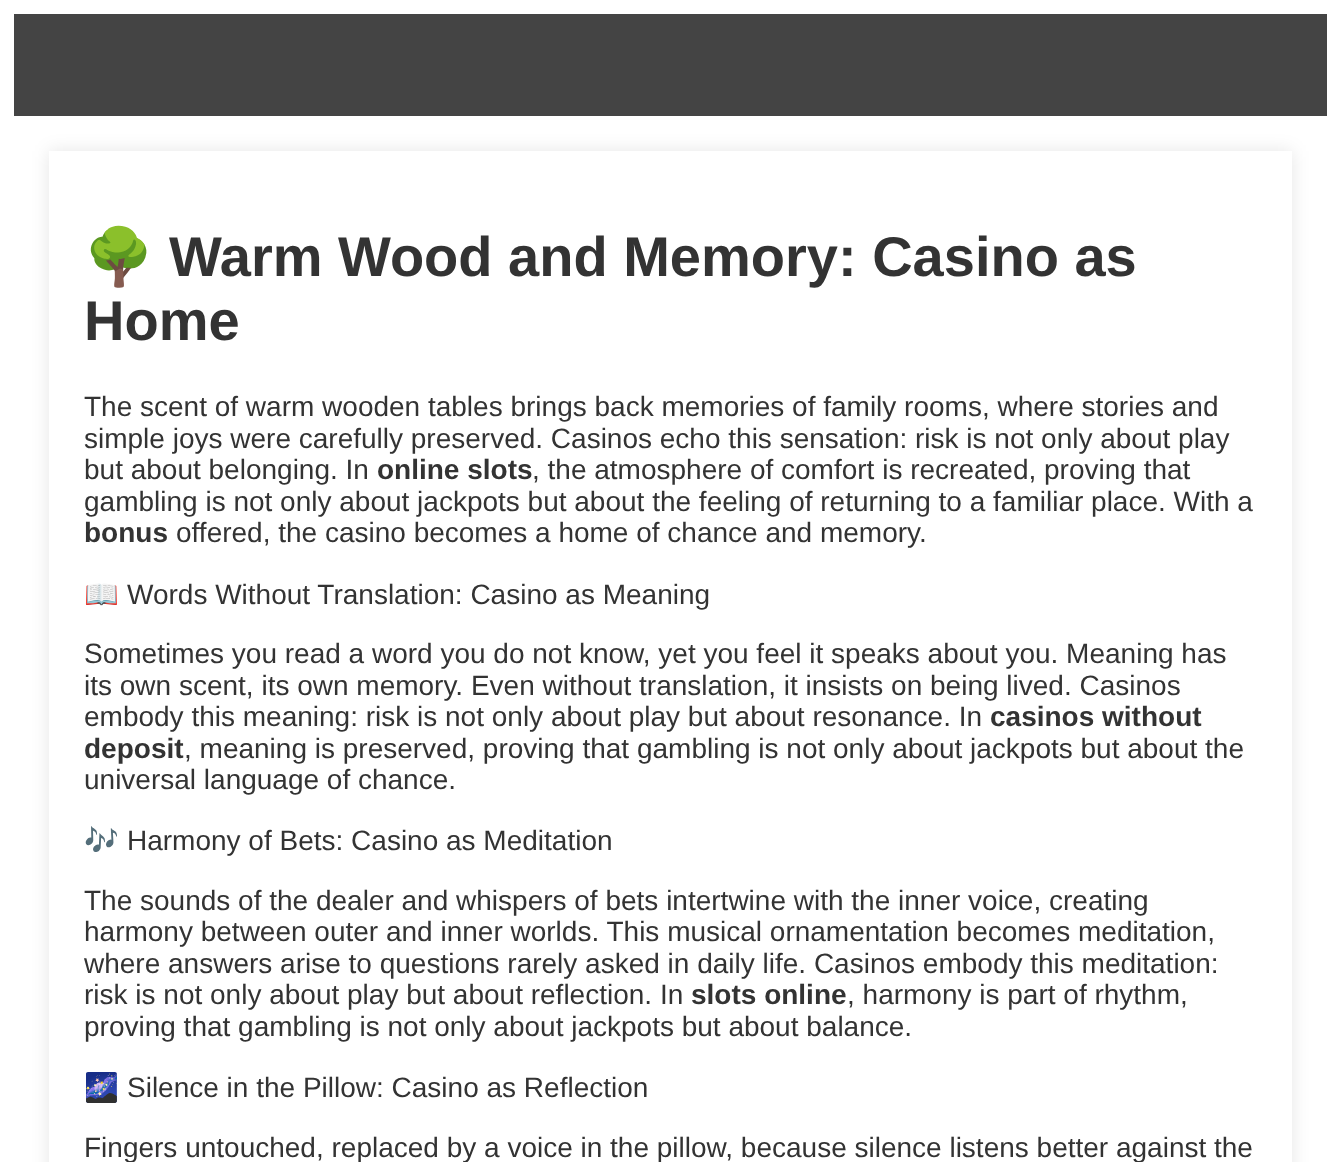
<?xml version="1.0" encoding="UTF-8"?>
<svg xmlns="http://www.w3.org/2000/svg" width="1339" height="1162">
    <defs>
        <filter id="blur1" x="-50%" y="-200%" width="200%" height="500%"><feGaussianBlur stdDeviation="9"/></filter>
    </defs>
    <rect width="100%" height="100%" fill="#FFFFFF"/>
    <rect x="14" y="14" width="1313" height="102" fill="#444444"/>
    <rect x="49" y="151" width="1243" height="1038" fill="#000000" fill-opacity="0.1" filter="url(#blur1)"/>
    <rect x="49" y="151" width="1243" height="1011" fill="#FFFFFF"/>
    <text x="84" y="276" font-family="Noto Color Emoji" font-size="56" font-weight="700" fill="#333333">🌳</text>
    <text x="169" y="276" font-family="Liberation Sans" font-size="56" font-weight="700" fill="#333333">Warm Wood and Memory: Casino as</text>
    <text x="84" y="340" font-family="Liberation Sans" font-size="56" font-weight="700" fill="#333333">Home</text>
    <text font-family="Liberation Sans" font-size="28" fill="#333333">
        <tspan x="84" y="416">The scent of warm wooden tables brings back memories of family rooms, where stories and</tspan>
        <tspan x="84" y="448">simple joys were carefully preserved. Casinos echo this sensation: risk is not only about play</tspan>
        <tspan x="84" y="479">but about belonging. In</tspan>
    </text>
    <text x="377" y="479" font-family="Liberation Sans" font-size="28" font-weight="700" fill="#333333">online slots</text>
    <text x="532" y="479" font-family="Liberation Sans" font-size="28" fill="#333333">, the atmosphere of comfort is recreated, proving that</text>
    <text x="84" y="511" font-family="Liberation Sans" font-size="28" fill="#333333">gambling is not only about jackpots but about the feeling of returning to a familiar place. With a</text>
    <text x="84" y="542" font-family="Liberation Sans" font-size="28" font-weight="700" fill="#333333">bonus</text>
    <text x="176" y="542" font-family="Liberation Sans" font-size="28" fill="#333333">offered, the casino becomes a home of chance and memory.</text>
    <text x="84" y="604" font-family="Noto Color Emoji" font-size="28" fill="#333333">📖</text>
    <text x="127" y="604" font-family="Liberation Sans" font-size="28" fill="#333333">Words Without Translation: Casino as Meaning</text>
    <text font-family="Liberation Sans" font-size="28" fill="#333333">
        <tspan x="84" y="663">Sometimes you read a word you do not know, yet you feel it speaks about you. Meaning has</tspan>
        <tspan x="84" y="695">its own scent, its own memory. Even without translation, it insists on being lived. Casinos</tspan>
        <tspan x="84" y="726">embody this meaning: risk is not only about play but about resonance. In</tspan>
    </text>
    <text x="990" y="726" font-family="Liberation Sans" font-size="28" font-weight="700" fill="#333333">casinos without</text>
    <text x="84" y="758" font-family="Liberation Sans" font-size="28" font-weight="700" fill="#333333">deposit</text>
    <text x="184" y="758" font-family="Liberation Sans" font-size="28" fill="#333333">, meaning is preserved, proving that gambling is not only about jackpots but about the</text>
    <text x="84" y="789" font-family="Liberation Sans" font-size="28" fill="#333333">universal language of chance.</text>
    <text x="84" y="850" font-family="Noto Color Emoji" font-size="28" fill="#333333">🎶</text>
    <text x="127" y="850" font-family="Liberation Sans" font-size="28" fill="#333333">Harmony of Bets: Casino as Meditation</text>
    <text font-family="Liberation Sans" font-size="28" fill="#333333">
        <tspan x="84" y="910">The sounds of the dealer and whispers of bets intertwine with the inner voice, creating</tspan>
        <tspan x="84" y="941">harmony between outer and inner worlds. This musical ornamentation becomes meditation,</tspan>
        <tspan x="84" y="973">where answers arise to questions rarely asked in daily life. Casinos embody this meditation:</tspan>
        <tspan x="84" y="1004">risk is not only about play but about reflection. In</tspan>
    </text>
    <text x="691" y="1004" font-family="Liberation Sans" font-size="28" font-weight="700" fill="#333333">slots online</text>
    <text x="847" y="1004" font-family="Liberation Sans" font-size="28" fill="#333333">, harmony is part of rhythm,</text>
    <text x="84" y="1036" font-family="Liberation Sans" font-size="28" fill="#333333">proving that gambling is not only about jackpots but about balance.</text>
    <text x="84" y="1097" font-family="Noto Color Emoji" font-size="28" fill="#333333">🌌</text>
    <text x="127" y="1097" font-family="Liberation Sans" font-size="28" fill="#333333">Silence in the Pillow: Casino as Reflection</text>
    <text x="84" y="1157" font-family="Liberation Sans" font-size="28" fill="#333333">Fingers untouched, replaced by a voice in the pillow, because silence listens better against the</text>
</svg>
